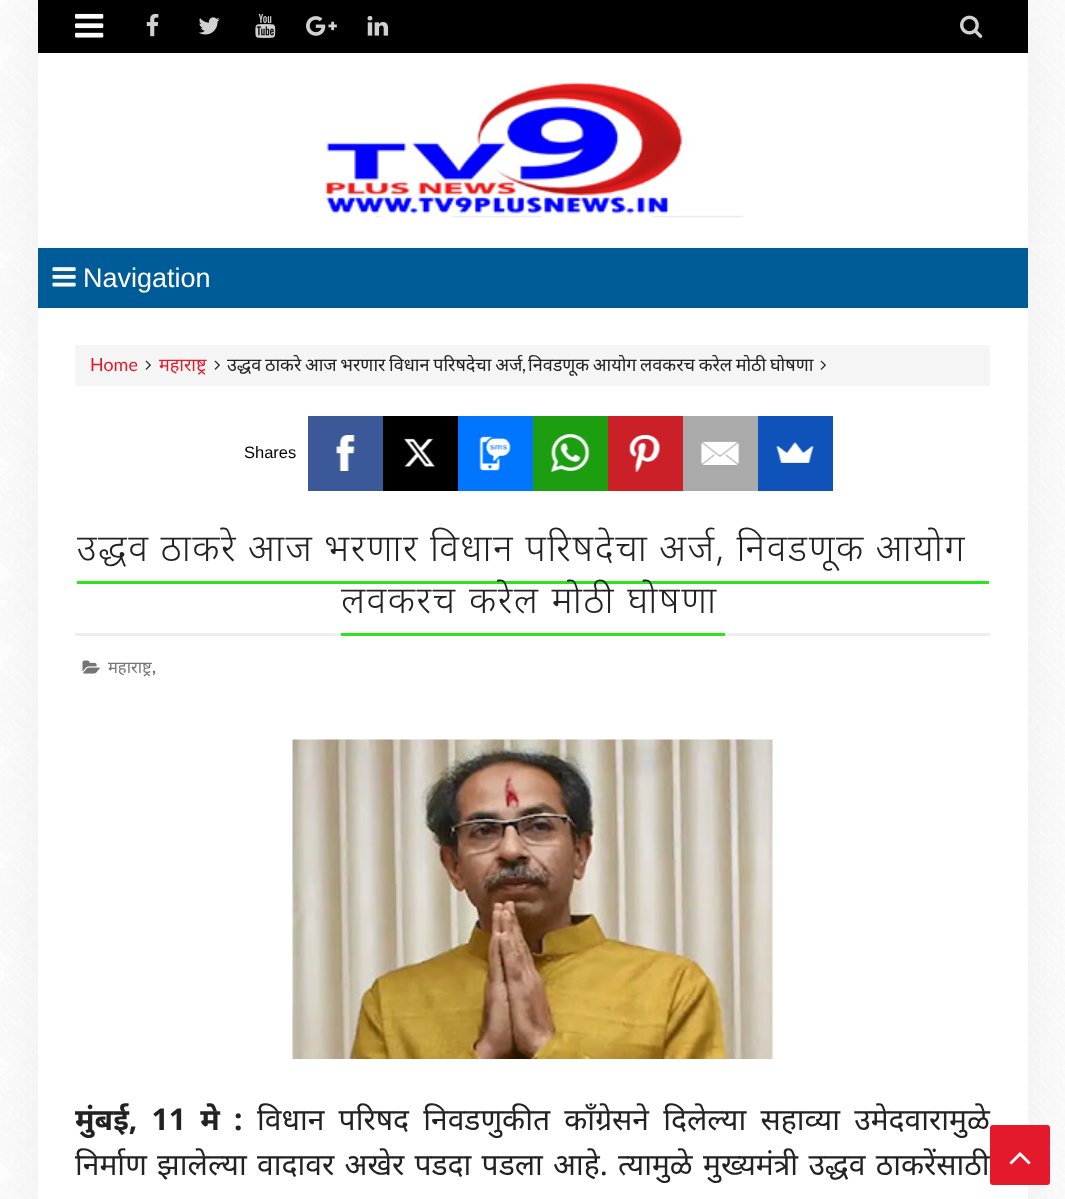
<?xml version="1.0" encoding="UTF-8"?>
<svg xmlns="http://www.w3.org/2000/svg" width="1065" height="1199">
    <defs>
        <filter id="blur1" x="-50%" y="-200%" width="200%" height="500%"><feGaussianBlur stdDeviation="30"/></filter>
    </defs>
    <rect width="100%" height="100%" fill="#FFFFFF"/>
    <image x="0" y="0" width="1065" height="1199" href="img_01.png"/>
    <rect x="38" y="0" width="990" height="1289" fill="#000000" fill-opacity="0.05" filter="url(#blur1)"/>
    <rect x="38" y="53" width="990" height="1146" fill="#FFFFFF"/>
    <rect x="38" y="0" width="990" height="53" fill="#000000"/>
    <image x="75" y="13" width="29" height="25" href="img_02.png"/>
    <image x="146" y="13" width="13" height="24" href="img_03.png"/>
    <image x="198" y="17" width="22" height="18" href="img_04.png"/>
    <image x="255" y="13" width="21" height="25" href="img_05.png"/>
    <image x="306" y="16" width="31" height="20" href="img_06.png"/>
    <image x="367" y="15" width="22" height="21" href="img_07.png"/>
    <image x="960" y="15" width="23" height="23" href="img_08.png"/>
    <image x="323" y="82" width="421" height="136" href="img_09.png"/>
    <rect x="38" y="248" width="990" height="60" fill="#005C99"/>
    <image x="52" y="267" width="24" height="20" href="img_10.png"/>
    <text x="83" y="287" font-family="Liberation Sans" font-size="27" fill="#FFFFFF">Navigation</text>
    <rect x="75" y="345" width="915" height="41" fill="#F5F5F5"/>
    <text x="90" y="371" font-family="Lato" font-size="18" fill="#E5192C">Home</text>
    <image x="145" y="360" width="6" height="10" href="img_11.png"/>
    <text x="159" y="371" font-family="Noto Sans" font-size="18" fill="#E5192C">महाराष्ट्र</text>
    <image x="214" y="360" width="6" height="10" href="img_11.png"/>
    <text x="227" y="371" word-spacing="-1" font-family="Noto Sans" font-size="18" fill="#222222">उद्धव ठाकरे आज भरणार विधान परिषदेचा अर्ज</text>
    <text x="528" y="371" word-spacing="-1" font-family="Noto Sans" font-size="18" fill="#222222">निवडणूक आयोग लवकरच करेल मोठी घोषणा</text>
    <image x="820" y="360" width="6" height="10" href="img_11.png"/>
    <text x="522" y="371" font-family="Lato" font-size="18" fill="#222222">,</text>
    <text x="244" y="458" font-family="Liberation Sans" font-size="16.5" fill="#000000">Shares</text>
    <rect x="308" y="416" width="75" height="75" fill="#3B5998"/>
    <image x="336" y="435" width="19" height="36" href="img_12.png"/>
    <rect x="383" y="416" width="75" height="75" fill="#000000"/>
    <image x="403" y="438" width="32" height="29" href="img_13.png"/>
    <rect x="458" y="416" width="75" height="75" fill="#0076FF"/>
    <image x="479" y="436" width="32" height="35" href="img_14.png"/>
    <rect x="533" y="416" width="75" height="75" fill="#1D9E11"/>
    <image x="550" y="434" width="40" height="38" href="img_15.png"/>
    <rect x="608" y="416" width="75" height="75" fill="#CB2027"/>
    <image x="629" y="435" width="31" height="37" href="img_16.png"/>
    <rect x="683" y="416" width="75" height="75" fill="#AAAAAA"/>
    <image x="700" y="441" width="40" height="24" href="img_17.png"/>
    <rect x="758" y="416" width="75" height="75" fill="#0F52BA"/>
    <image x="776" y="442" width="38" height="21" href="img_18.png"/>
    <rect x="75" y="633" width="915" height="3" fill="#EEEEEE"/>
    <text x="77" y="561" word-spacing="-0.25" font-family="Noto Sans" font-size="37.5" font-weight="300" letter-spacing="1.5" fill="#222222">उद्धव ठाकरे आज भरणार विधान परिषदेचा अर्ज, निवडणूक आयोग</text>
    <rect x="77" y="581" width="912" height="3" fill="#2BE519"/>
    <text x="341" y="613" word-spacing="1" font-family="Noto Sans" font-size="37.5" font-weight="300" letter-spacing="1.5" fill="#222222">लवकरच करेल मोठी घोषणा</text>
    <rect x="341" y="633" width="384" height="3" fill="#2BE519"/>
    <image x="82" y="660" width="18" height="14" href="img_19.png"/>
    <text x="108" y="673" font-family="Noto Sans" font-size="16.5" fill="#757575">महाराष्ट्र</text>
    <text x="152" y="673" font-family="Lato" font-size="16.5" font-weight="700" fill="#757575">,</text>
    <image x="292" y="739" width="481" height="320" href="img_20.png"/>
    <text x="75" y="1130" word-spacing="6.5" font-family="Noto Sans" font-size="30" font-weight="700" fill="#222222">मुंबई, 11 मे :</text>
    <text x="257" y="1130" word-spacing="6.5" font-family="Noto Sans" font-size="30" fill="#222222">विधान परिषद निवडणुकीत काँग्रेसने दिलेल्या सहाव्या उमेदवारामुळे</text>
    <text x="75" y="1175" word-spacing="2.5" font-family="Noto Sans" font-size="30" fill="#222222">निर्माण झालेल्या वादावर अखेर पडदा पडला आहे. त्यामुळे मुख्यमंत्री उद्धव ठाकरेंसाठी</text>
    <rect x="990" y="1125" width="60" height="60" rx="3" fill="#E5192C"/>
    <image x="1009" y="1152" width="22" height="13" href="img_21.png"/>
</svg>
